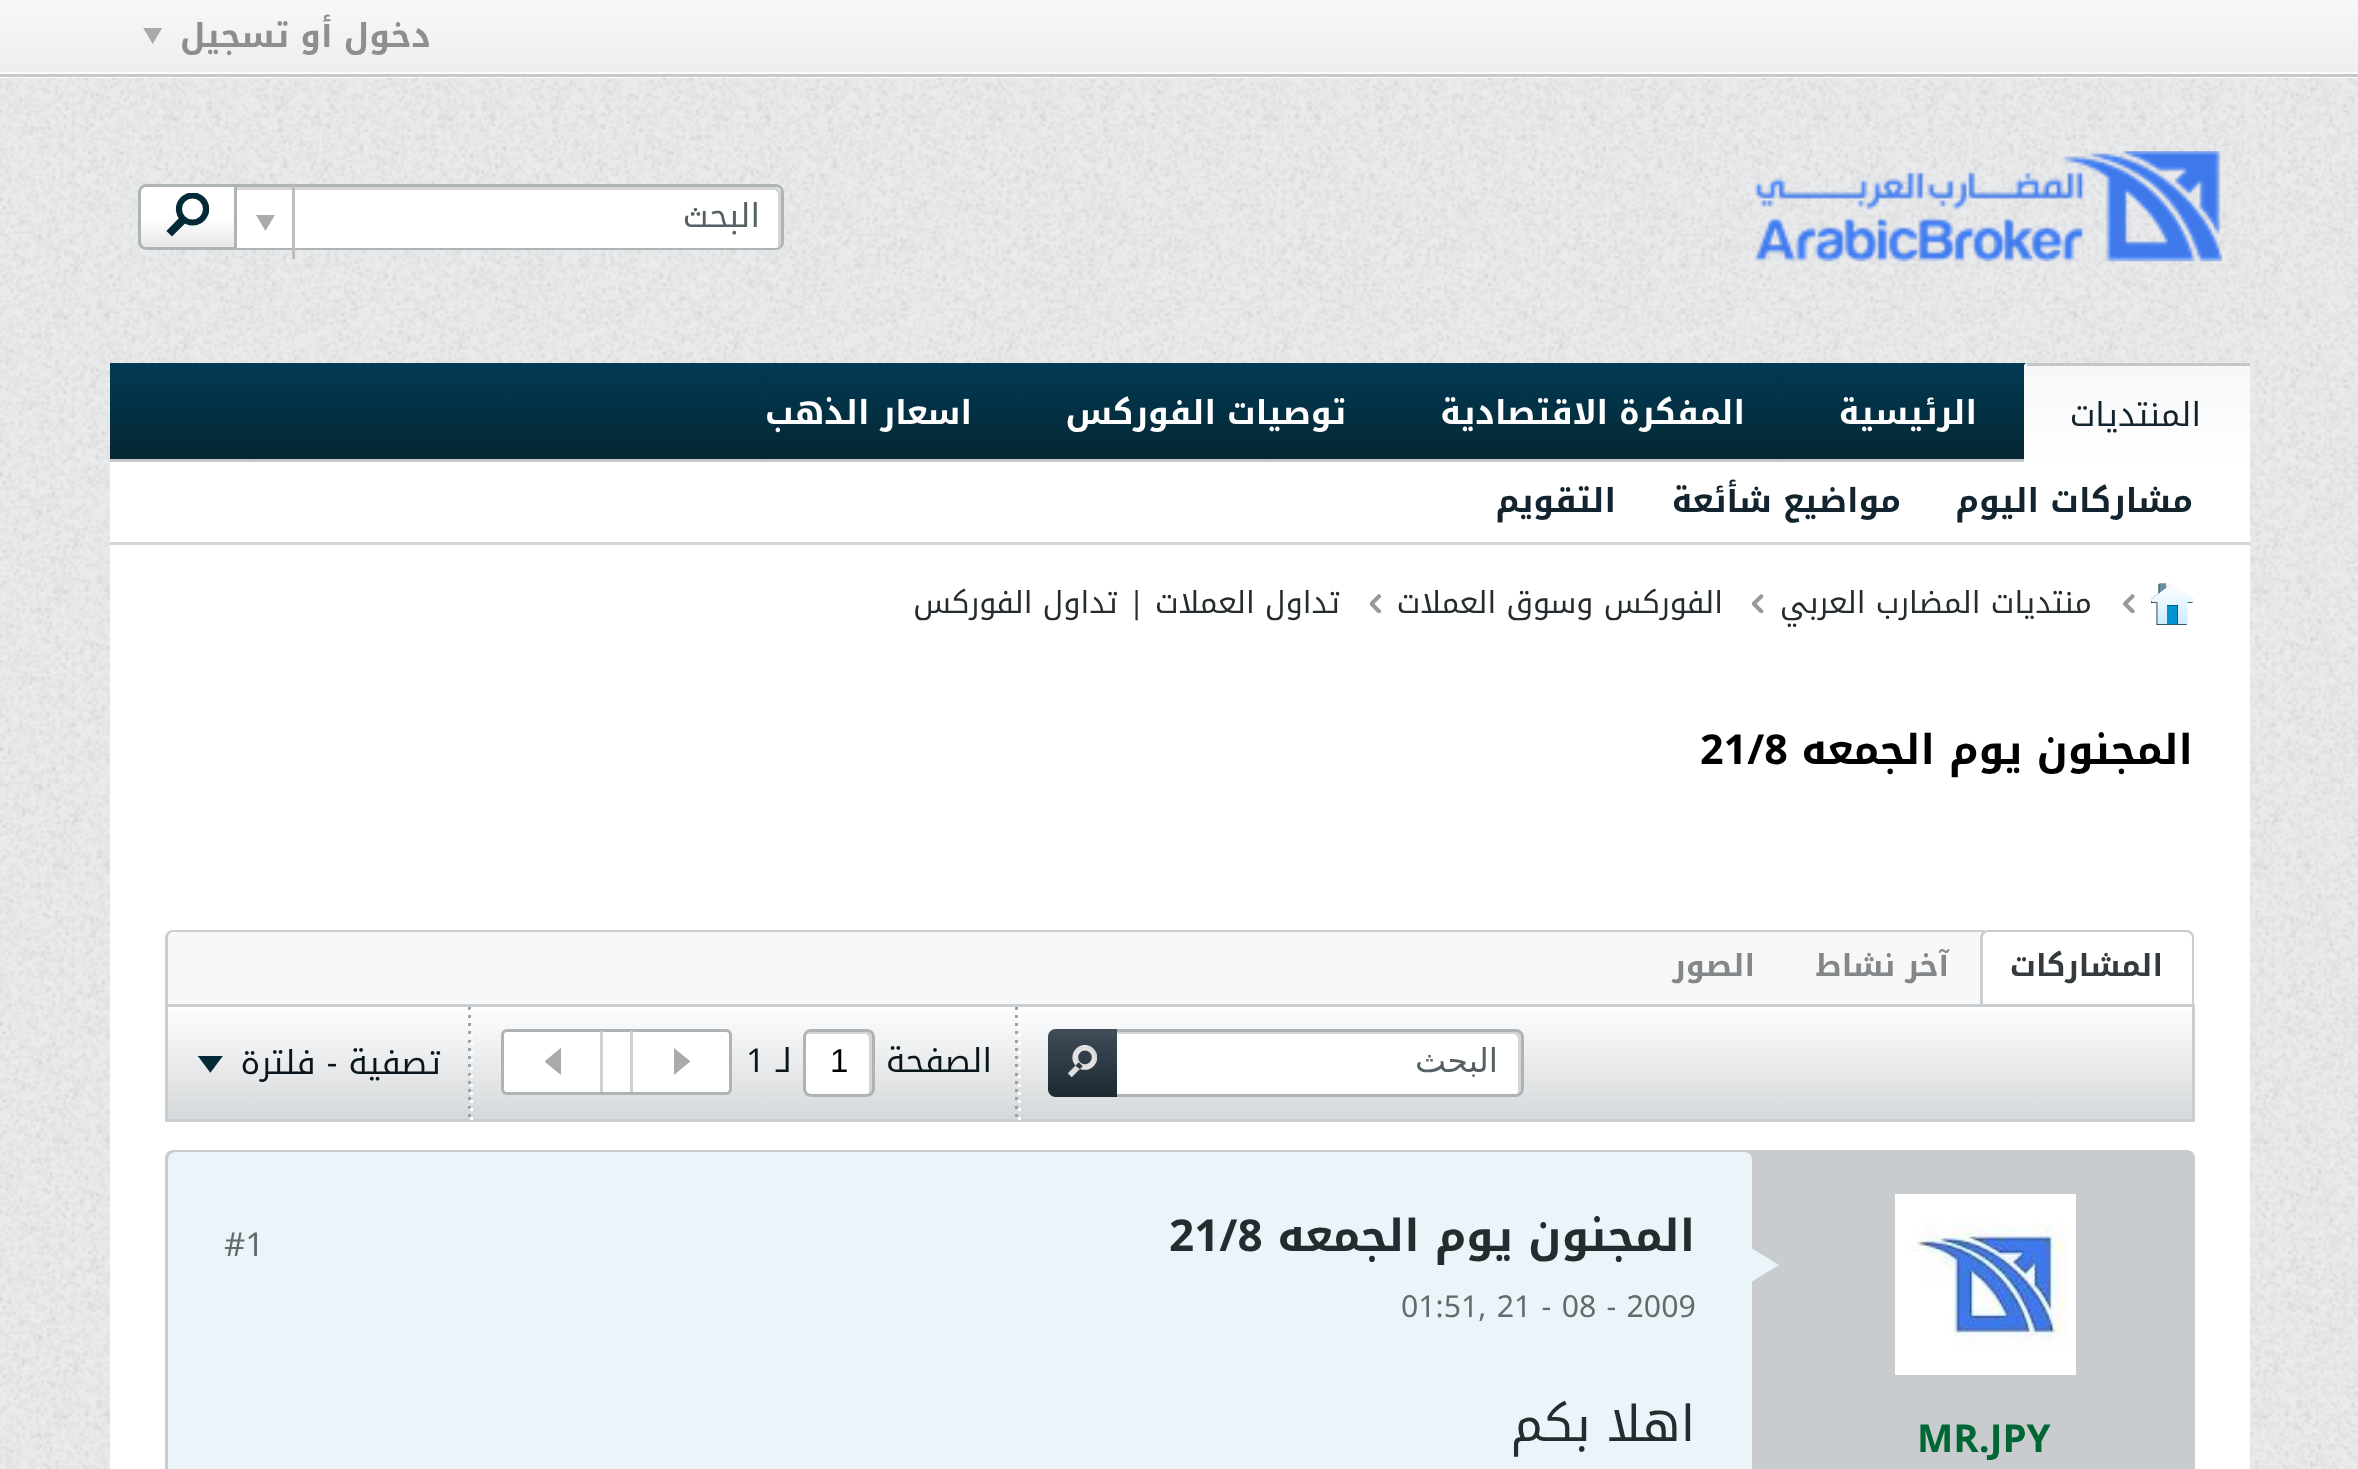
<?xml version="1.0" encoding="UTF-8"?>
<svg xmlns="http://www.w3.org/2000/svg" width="2358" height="1469">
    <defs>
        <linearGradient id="g1" gradientUnits="userSpaceOnUse" x1="1180" y1="0" x2="1180" y2="77"><stop offset="0" stop-color="#F8F8F8"/><stop offset="1" stop-color="#EFEDEE"/></linearGradient>
        <clipPath id="clip1"><path d="M 146 184 H 237 V 250 H 146 C 141.5 250 138 246.5 138 242 V 192 C 138 187.5 141.5 184 146 184 Z"/></clipPath>
        <linearGradient id="g2" gradientUnits="userSpaceOnUse" x1="187" y1="248" x2="187" y2="187"><stop offset="0" stop-color="#000000" stop-opacity="0.1"/><stop offset="0.5" stop-color="#000000" stop-opacity="0"/><stop offset="0.5" stop-color="#FFFFFF" stop-opacity="0"/><stop offset="1" stop-color="#FFFFFF" stop-opacity="0.7"/></linearGradient>
        <linearGradient id="g3" gradientUnits="userSpaceOnUse" x1="1180" y1="363" x2="1180" y2="459"><stop offset="0" stop-color="#013A54"/><stop offset="1" stop-color="#052733"/></linearGradient>
        <linearGradient id="g4" gradientUnits="userSpaceOnUse" x1="2137" y1="270" x2="2137" y2="366"><stop offset="0" stop-color="#F7F7F7"/><stop offset="1" stop-color="#FFFFFF"/></linearGradient>
        <linearGradient id="g5" gradientUnits="userSpaceOnUse" x1="2137" y1="366" x2="2137" y2="462"><stop offset="0" stop-color="#F7F7F7"/><stop offset="1" stop-color="#FFFFFF"/></linearGradient>
        <linearGradient id="g6" gradientUnits="userSpaceOnUse" x1="1180" y1="1006" x2="1180" y2="1119"><stop offset="0" stop-color="#FEFEFF"/><stop offset="1" stop-color="#D5D8DA"/></linearGradient>
        <linearGradient id="g7" gradientUnits="userSpaceOnUse" x1="1082" y1="1029" x2="1082" y2="1097"><stop offset="0" stop-color="#404D5A"/><stop offset="1" stop-color="#1C2931"/></linearGradient>
    </defs>
    <rect width="100%" height="100%" fill="#EAEBEC"/>
    <image x="0" y="78" width="2358" height="1391" href="img_01.png"/>
    <rect x="0" y="0" width="2358" height="72" fill="url(#g1)"/>
    <text x="431" y="47" font-family="Noto Kufi Arabic" font-size="33" font-weight="700" direction="rtl" fill="#8E8E8E">دخول أو تسجيل</text>
    <image x="143" y="28" width="19" height="16" href="img_02.png"/>
    <rect x="0" y="72" width="2358" height="6" fill="#FAFAFA"/>
    <rect x="0" y="74" width="2358" height="3" fill="#C7C8C9"/>
    <rect x="110" y="78" width="2140" height="285" fill="#EAEBEC"/>
    <image x="110" y="78" width="2140" height="285" href="img_03.png"/>
    <image x="1754" y="151" width="468" height="111" href="img_04.png"/>
    <path d="M 237 184 H 776 C 780.5 184 784 187.5 784 192 V 242 C 784 246.5 780.5 250 776 250 H 237 Z" fill="#FFFFFF"/>
    <path d="M 237 187 V 190 H 773 C 776 190 778 192 778 195 V 245 L 777 247 C 780 247 781 244 781 242 V 193 C 781 190 778 187 775 187 Z" fill="#D5D5D5"/>
    <path d="M 146 184 H 237 V 250 H 146 C 141.5 250 138 246.5 138 242 V 192 C 138 187.5 141.5 184 146 184 Z" fill="#FFFFFF"/>
    <g clip-path="url(#clip1)">
        <rect x="138" y="187" width="96" height="61" fill="url(#g2)"/>
    </g>
    <path d="M 146 185.5 H 235.5 V 248.5 H 146 C 142.5 248.5 139.5 245.5 139.5 242 V 192 C 139.5 188.5 142.5 185.5 146 185.5 Z" fill="none" stroke="#AEB3B6" stroke-width="3"/>
    <path d="M 236 184 H 776 C 780 184 784 188 784 192 V 242 C 784 247 780 250 776 250 H 236 Z M 236 187 H 776 C 779 187 781 189 781 192 V 242 C 781 245 779 248 776 248 H 236 Z" fill="#AEB3B6" fill-rule="evenodd"/>
    <text x="760" y="227" font-family="Noto Kufi Arabic" font-size="33" direction="rtl" fill="#556065">البحث</text>
    <rect x="292" y="184" width="3" height="75" fill="#BDBDBD"/>
    <image x="256" y="215" width="19" height="16" href="img_05.png"/>
    <image x="166" y="193" width="43" height="44" href="img_06.png"/>
    <rect x="110" y="363" width="1917" height="96" fill="url(#g3)"/>
    <rect x="110" y="459" width="1914" height="3" fill="#C4C7C8"/>
    <path d="M 2027 363 H 2247 C 2248.5 363 2250 364.5 2250 366 H 2024 C 2024 364.5 2025.5 363 2027 363 Z" fill="url(#g4)"/>
    <rect x="2024" y="366" width="226" height="96" fill="url(#g5)"/>
    <rect x="2027" y="363" width="223" height="3" fill="#C4C7C8"/>
    <text x="2201" y="426" font-family="Noto Kufi Arabic" font-size="33" direction="rtl" fill="#13242F">المنتديات</text>
    <text x="1977" y="424" font-family="Noto Kufi Arabic" font-size="33" font-weight="700" direction="rtl" fill="#FFFFFF">الرئيسية</text>
    <text x="1745" y="424" font-family="Noto Kufi Arabic" font-size="33" font-weight="700" direction="rtl" fill="#FFFFFF">المفكرة</text>
    <text x="1608" y="424" font-family="Noto Kufi Arabic" font-size="33" font-weight="700" direction="rtl" fill="#FFFFFF">الاقتصادية</text>
    <text x="1346" y="424" font-family="Noto Kufi Arabic" font-size="33" font-weight="700" direction="rtl" fill="#FFFFFF">توصيات الفوركس</text>
    <text x="972" y="424" font-family="Noto Kufi Arabic" font-size="33" font-weight="700" direction="rtl" fill="#FFFFFF">اسعار الذهب</text>
    <rect x="110" y="462" width="2140" height="80" fill="#FFFFFF"/>
    <rect x="110" y="542" width="2140" height="3" fill="#D3D5D6"/>
    <text x="2193" y="512" font-family="Noto Kufi Arabic" font-size="33" font-weight="700" direction="rtl" fill="#13242F">مشاركات اليوم</text>
    <text x="1901" y="512" font-family="Noto Kufi Arabic" font-size="33" font-weight="700" direction="rtl" fill="#13242F">مواضيع شأئعة</text>
    <text x="1616" y="512" font-family="Noto Kufi Arabic" font-size="33" font-weight="700" direction="rtl" fill="#13242F">التقويم</text>
    <rect x="110" y="545" width="2140" height="924" fill="#FFFFFF"/>
    <image x="2151" y="583" width="44" height="42" href="img_07.png"/>
    <image x="2123" y="594" width="12" height="19" href="img_08.png"/>
    <text x="2092" y="613" font-family="Noto Kufi Arabic" font-size="30.25" direction="rtl" fill="#252C2F">منتديات المضارب العربي</text>
    <image x="1752" y="594" width="12" height="19" href="img_09.png"/>
    <text x="1723" y="613" font-family="Noto Kufi Arabic" font-size="30.25" direction="rtl" fill="#252C2F">الفوركس وسوق العملات</text>
    <image x="1370" y="594" width="12" height="19" href="img_10.png"/>
    <text x="1340" y="613" font-family="Noto Kufi Arabic" font-size="30.25" direction="rtl" fill="#252C2F">تداول العملات | تداول الفوركس</text>
    <text x="2193" y="764" font-family="Noto Kufi Arabic" font-size="41.25" font-weight="700" direction="rtl" fill="#000000">المجنون يوم الجمعه</text>
    <text x="1700" y="764" font-family="Noto Kufi Arabic" font-size="41.25" font-weight="700" fill="#000000">21/8</text>
    <path d="M 173 930 H 2187 C 2191.5 930 2195 933.5 2195 938 V 1004 H 165 V 938 C 165 933.5 168.5 930 173 930 Z" fill="#F8F8F8"/>
    <path d="M 173 930 H 2186 C 2191 930 2194 933 2194 938 V 1004 H 165 V 938 C 165 933 169 930 173 930 Z M 173 932 H 2186 C 2189 932 2192 935 2192 938 V 1004 H 168 V 938 C 168 935 170 932 173 932 Z" fill="#C9CED2" fill-rule="evenodd"/>
    <path d="M 1988 930 H 2187 C 2191.5 930 2195 933.5 2195 938 V 1004 H 1980 V 938 C 1980 933.5 1983.5 930 1988 930 Z" fill="#FFFFFF"/>
    <path d="M 1988 930 H 2186 C 2191 930 2194 933 2194 938 V 1004 H 1980 V 938 C 1980 933 1984 930 1988 930 Z M 1988 932 H 2186 C 2189 932 2192 935 2192 938 V 1004 H 1983 V 938 C 1983 935 1985 932 1988 932 Z" fill="#C9CED2" fill-rule="evenodd"/>
    <text x="2163" y="976" font-family="Noto Kufi Arabic" font-size="30.25" font-weight="700" direction="rtl" fill="#343A3D">المشاركات</text>
    <text x="1949" y="976" font-family="Noto Kufi Arabic" font-size="30.25" font-weight="700" direction="rtl" fill="#838789">آخر نشاط</text>
    <text x="1755" y="976" font-family="Noto Kufi Arabic" font-size="30.25" font-weight="700" direction="rtl" fill="#838789">الصور</text>
    <rect x="168" y="1010" width="2024" height="109" fill="url(#g6)"/>
    <rect x="166.5" y="1005.5" width="2027" height="115" fill="none" stroke="#C9CED2" stroke-width="3"/>
    <rect x="1048" y="1029" width="476" height="68" rx="8" fill="#FFFFFF"/>
    <path d="M 1053 1034 H 1512 C 1516 1034 1518 1036 1518 1040 V 1092 L 1517 1094 C 1520 1094 1521 1091 1521 1089 V 1037 C 1521 1034 1518 1031 1515 1031 H 1057 C 1055 1031 1053 1032 1052 1034 Z" fill="#D5D5D5"/>
    <rect x="1049.5" y="1030.5" width="473" height="65" rx="6.5" fill="none" stroke="#AEB3B6" stroke-width="3"/>
    <text x="1498" y="1072" font-family="DejaVu Sans" font-size="33" direction="rtl" fill="#556065">البحث</text>
    <path d="M 1056 1029 H 1117 V 1097 H 1056 C 1051.5 1097 1048 1093.5 1048 1089 V 1037 C 1048 1032.5 1051.5 1029 1056 1029 Z" fill="url(#g7)"/>
    <image x="1067" y="1045" width="30" height="33" href="img_11.png"/>
    <rect x="1015" y="1007" width="3" height="3" fill="#9BA3A9"/>
    <rect x="1015" y="1015" width="3" height="3" fill="#9BA3A9"/>
    <rect x="1015" y="1023" width="3" height="3" fill="#9BA3A9"/>
    <rect x="1015" y="1031" width="3" height="3" fill="#9BA3A9"/>
    <rect x="1015" y="1040" width="3" height="3" fill="#9BA3A9"/>
    <rect x="1015" y="1048" width="3" height="3" fill="#9BA3A9"/>
    <rect x="1015" y="1056" width="3" height="3" fill="#9BA3A9"/>
    <rect x="1015" y="1064" width="3" height="3" fill="#9BA3A9"/>
    <rect x="1015" y="1073" width="3" height="3" fill="#9BA3A9"/>
    <rect x="1015" y="1081" width="3" height="3" fill="#9BA3A9"/>
    <rect x="1015" y="1089" width="3" height="3" fill="#9BA3A9"/>
    <rect x="1015" y="1097" width="3" height="3" fill="#9BA3A9"/>
    <rect x="1015" y="1106" width="3" height="3" fill="#9BA3A9"/>
    <rect x="1015" y="1114" width="3" height="3" fill="#9BA3A9"/>
    <rect x="1018" y="1010" width="3" height="2" fill="#FFFFFF"/>
    <rect x="1018" y="1018" width="3" height="3" fill="#FFFFFF"/>
    <rect x="1018" y="1026" width="3" height="3" fill="#FFFFFF"/>
    <rect x="1018" y="1034" width="3" height="3" fill="#FFFFFF"/>
    <rect x="1018" y="1042" width="3" height="3" fill="#FFFFFF"/>
    <rect x="1018" y="1051" width="3" height="3" fill="#FFFFFF"/>
    <rect x="1018" y="1059" width="3" height="3" fill="#FFFFFF"/>
    <rect x="1018" y="1067" width="3" height="3" fill="#FFFFFF"/>
    <rect x="1018" y="1075" width="3" height="3" fill="#FFFFFF"/>
    <rect x="1018" y="1084" width="3" height="3" fill="#FFFFFF"/>
    <rect x="1018" y="1092" width="3" height="3" fill="#FFFFFF"/>
    <rect x="1018" y="1100" width="3" height="3" fill="#FFFFFF"/>
    <rect x="1018" y="1108" width="3" height="3" fill="#FFFFFF"/>
    <rect x="1018" y="1117" width="3" height="3" fill="#FFFFFF"/>
    <text x="992" y="1072" font-family="Noto Kufi Arabic" font-size="33" direction="rtl" fill="#09161B">الصفحة</text>
    <rect x="803" y="1029" width="72" height="68" rx="8" fill="#FFFFFF"/>
    <path d="M 808 1034 H 864 C 867 1034 869 1036 869 1040 V 1092 L 868 1094 C 871 1094 872 1091 872 1089 V 1037 C 872 1034 869 1031 866 1031 H 812 C 810 1031 808 1032 807 1034 Z" fill="#D5D5D5"/>
    <rect x="804.5" y="1030.5" width="69" height="65" rx="6.5" fill="none" stroke="#AEB3B6" stroke-width="3"/>
    <text x="830" y="1072" font-family="Liberation Sans" font-size="33" fill="#000000">1</text>
    <text x="792" y="1072" font-family="Noto Kufi Arabic" font-size="33" direction="rtl" fill="#09161B">لـ</text>
    <text x="746" y="1072" font-family="Noto Kufi Arabic" font-size="33" fill="#09161B">1</text>
    <rect x="502.5" y="1030.5" width="228" height="63" rx="4.5" fill="#FFFFFF" stroke="#AEB3B6" stroke-width="3"/>
    <rect x="630" y="1031" width="3" height="61" fill="#CDD1D4"/>
    <image x="674" y="1048" width="16" height="27" href="img_12.png"/>
    <rect x="600" y="1031" width="3" height="61" fill="#CDD1D4"/>
    <image x="545" y="1048" width="16" height="27" href="img_13.png"/>
    <rect x="468" y="1007" width="3" height="3" fill="#9BA3A9"/>
    <rect x="468" y="1015" width="3" height="3" fill="#9BA3A9"/>
    <rect x="468" y="1023" width="3" height="3" fill="#9BA3A9"/>
    <rect x="468" y="1031" width="3" height="3" fill="#9BA3A9"/>
    <rect x="468" y="1040" width="3" height="3" fill="#9BA3A9"/>
    <rect x="468" y="1048" width="3" height="3" fill="#9BA3A9"/>
    <rect x="468" y="1056" width="3" height="3" fill="#9BA3A9"/>
    <rect x="468" y="1064" width="3" height="3" fill="#9BA3A9"/>
    <rect x="468" y="1073" width="3" height="3" fill="#9BA3A9"/>
    <rect x="468" y="1081" width="3" height="3" fill="#9BA3A9"/>
    <rect x="468" y="1089" width="3" height="3" fill="#9BA3A9"/>
    <rect x="468" y="1097" width="3" height="3" fill="#9BA3A9"/>
    <rect x="468" y="1106" width="3" height="3" fill="#9BA3A9"/>
    <rect x="468" y="1114" width="3" height="3" fill="#9BA3A9"/>
    <rect x="470" y="1009" width="3" height="3" fill="#FFFFFF"/>
    <rect x="470" y="1018" width="3" height="3" fill="#FFFFFF"/>
    <rect x="470" y="1026" width="3" height="3" fill="#FFFFFF"/>
    <rect x="470" y="1034" width="3" height="3" fill="#FFFFFF"/>
    <rect x="470" y="1042" width="3" height="3" fill="#FFFFFF"/>
    <rect x="470" y="1051" width="3" height="3" fill="#FFFFFF"/>
    <rect x="470" y="1059" width="3" height="3" fill="#FFFFFF"/>
    <rect x="470" y="1067" width="3" height="3" fill="#FFFFFF"/>
    <rect x="470" y="1075" width="3" height="3" fill="#FFFFFF"/>
    <rect x="470" y="1084" width="3" height="3" fill="#FFFFFF"/>
    <rect x="470" y="1092" width="3" height="3" fill="#FFFFFF"/>
    <rect x="470" y="1100" width="3" height="3" fill="#FFFFFF"/>
    <rect x="470" y="1108" width="3" height="3" fill="#FFFFFF"/>
    <rect x="470" y="1117" width="3" height="3" fill="#FFFFFF"/>
    <text x="441" y="1074" font-family="Noto Kufi Arabic" font-size="33" direction="rtl" fill="#09161B">تصفية - فلترة</text>
    <image x="198" y="1056" width="25" height="17" href="img_14.png"/>
    <rect x="166.5" y="1151.5" width="2027" height="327" rx="6.5" fill="#C8CCCE" stroke="#C8CCCE" stroke-width="3"/>
    <rect x="1896.5" y="1195.5" width="178" height="178" fill="none" stroke="#FFFFFF" stroke-width="3"/>
    <image x="1898" y="1197" width="175" height="175" href="img_15.png"/>
    <text x="1917" y="1452" font-family="Noto Kufi Arabic" font-size="38.5" font-weight="700" fill="#006633">MR.JPY</text>
    <rect x="168" y="1152" width="1584" height="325" rx="8" fill="#EBF4F9"/>
    <path d="M 1752 1281.5 V 1248.5 L 1779 1265 Z" fill="#EBF4F9"/>
    <text x="1695" y="1251" font-family="Noto Kufi Arabic" font-size="44" font-weight="700" direction="rtl" fill="#252C2F">المجنون يوم الجمعه</text>
    <text x="1169" y="1251" font-family="Noto Kufi Arabic" font-size="44" font-weight="700" fill="#252C2F">21/8</text>
    <text x="1401" y="1317" font-family="Noto Kufi Arabic" font-size="30.25" fill="#656A6D">01:51, 21 - 08 - 2009</text>
    <text x="224" y="1256" font-family="Noto Kufi Arabic" font-size="33" fill="#656A6D">#1</text>
    <text x="1695" y="1441" font-family="Noto Kufi Arabic" font-size="49.5" direction="rtl" fill="#252C2F">اهلا بكم</text>
</svg>
